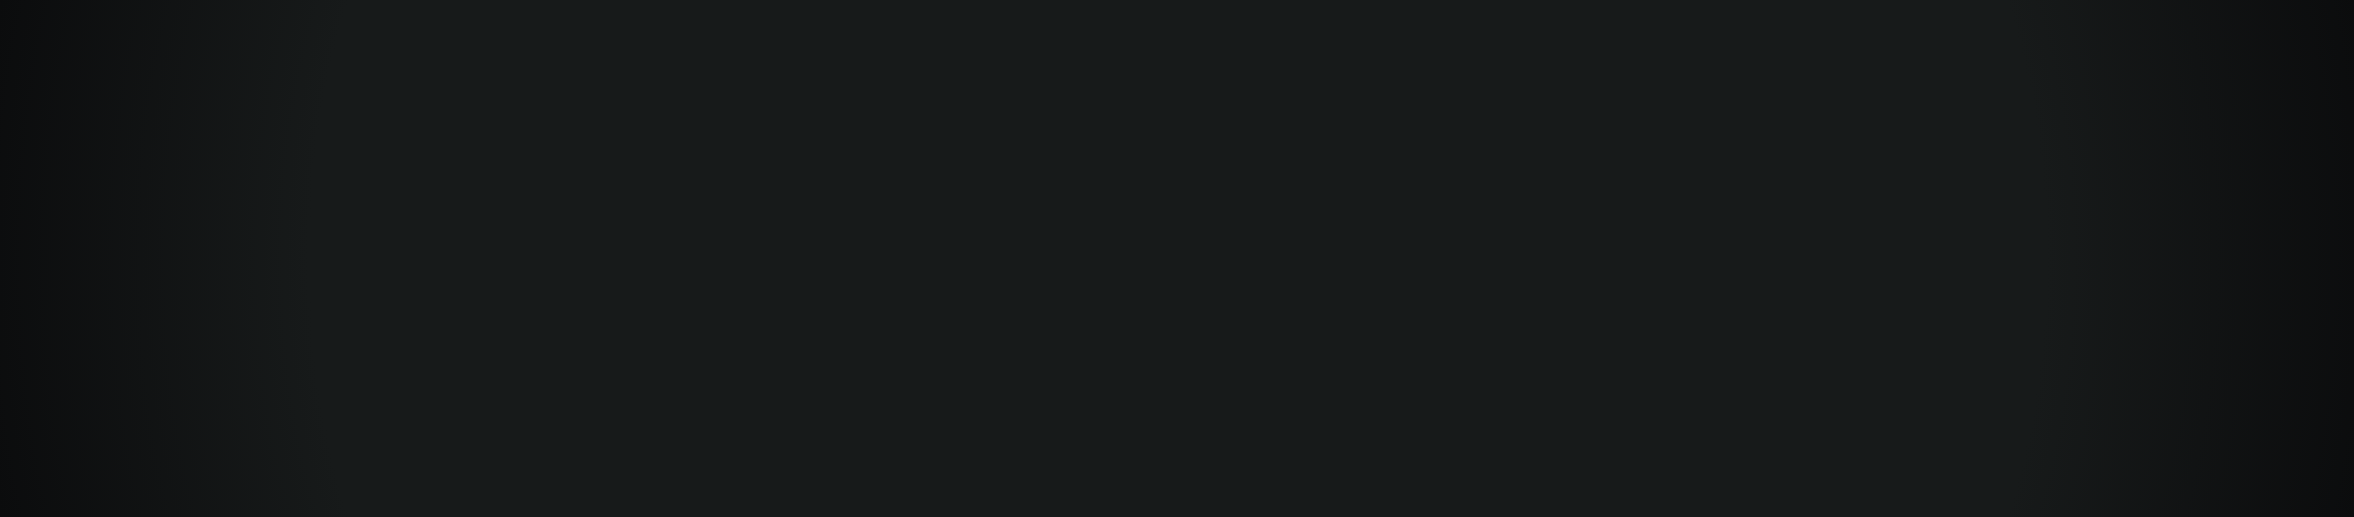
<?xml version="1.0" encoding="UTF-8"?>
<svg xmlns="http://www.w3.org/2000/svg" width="2354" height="517">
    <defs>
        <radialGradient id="g1" gradientUnits="userSpaceOnUse" cx="1178" cy="259" r="1206"><stop offset="0" stop-color="#171A1A"/><stop offset="0.72" stop-color="#171A1A"/><stop offset="1" stop-color="#0B0C0D"/></radialGradient>
    </defs>
    <rect width="100%" height="100%" fill="#FFFFFF"/>
    <rect x="0" y="0" width="2354" height="517" fill="url(#g1)"/>
</svg>
